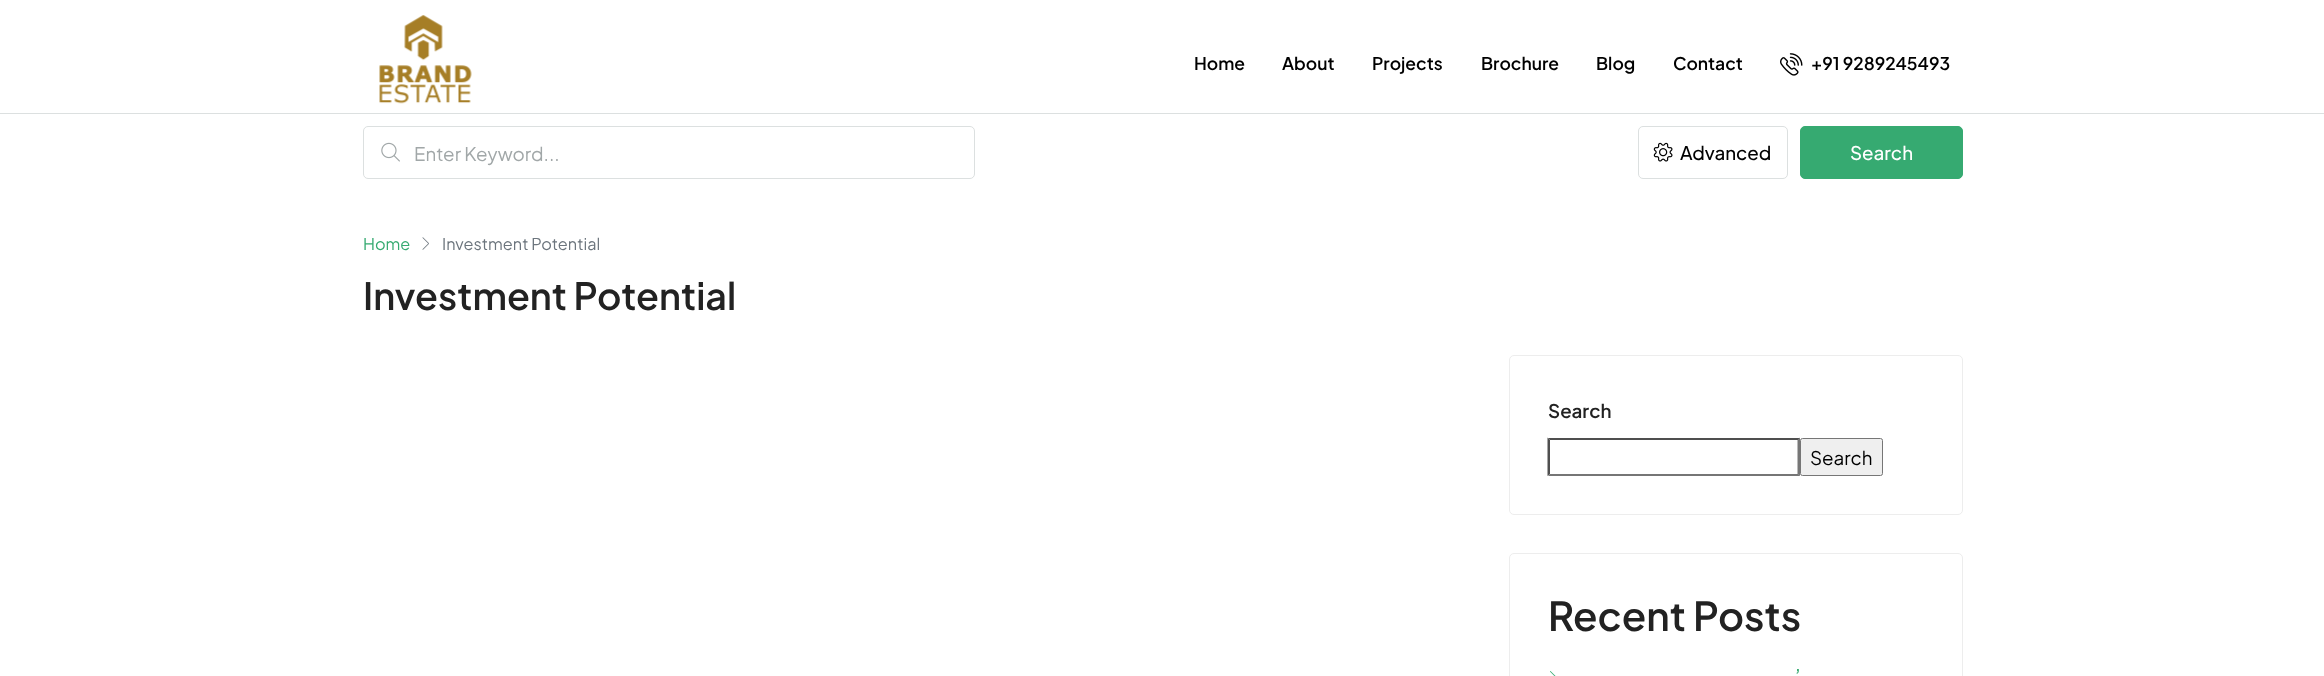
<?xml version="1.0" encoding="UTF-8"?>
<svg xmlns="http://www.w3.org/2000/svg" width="2324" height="676">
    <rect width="100%" height="100%" fill="#FFFFFF"/>
    <image x="379" y="15" width="93" height="89" href="img_01.png"/>
    <text x="1194" y="70" font-family="Plus Jakarta Sans" font-size="17.5" font-weight="600" fill="#000000">Home</text>
    <text x="1282" y="70" font-family="Plus Jakarta Sans" font-size="17.5" font-weight="600" fill="#000000">About</text>
    <text x="1372" y="70" font-family="Plus Jakarta Sans" font-size="17.5" font-weight="600" fill="#000000">Projects</text>
    <text x="1481" y="70" font-family="Plus Jakarta Sans" font-size="17.5" font-weight="600" fill="#000000">Brochure</text>
    <text x="1596" y="70" font-family="Plus Jakarta Sans" font-size="17.5" font-weight="600" fill="#000000">Blog</text>
    <text x="1673" y="70" font-family="Plus Jakarta Sans" font-size="17.5" font-weight="600" fill="#000000">Contact</text>
    <image x="1780" y="53" width="23" height="23" href="img_02.png"/>
    <text x="1811" y="70" font-family="Plus Jakarta Sans" font-size="17.5" font-weight="600" fill="#000000">+91 9289245493</text>
    <rect x="0" y="113" width="2324" height="1" fill="#DCE0E0"/>
    <rect x="363.5" y="126.5" width="611" height="52" rx="4.5" fill="none" stroke="#DCE0E0"/>
    <image x="381" y="142" width="19" height="20" href="img_03.png"/>
    <text x="414" y="161" font-family="Plus Jakarta Sans" font-size="18.75" fill="#A1A7A8">Enter Keyword...</text>
    <rect x="1638.5" y="126.5" width="149" height="52" rx="4.5" fill="none" stroke="#DCE0E0"/>
    <image x="1653" y="142" width="20" height="20" href="img_04.png"/>
    <text x="1680" y="160" font-family="Plus Jakarta Sans" font-size="18.75" font-weight="500" fill="#000000">Advanced</text>
    <rect x="1800.5" y="126.5" width="162" height="52" rx="4.5" fill="#36AA71" stroke="#36AA71"/>
    <text x="1850" y="160" font-family="Plus Jakarta Sans" font-size="18.75" font-weight="500" fill="#FFFFFF">Search</text>
    <text x="363" y="250" font-family="Plus Jakarta Sans" font-size="16.25" fill="#36AA71">Home</text>
    <image x="422" y="237" width="7" height="13" href="img_05.png"/>
    <text x="442" y="250" font-family="Plus Jakarta Sans" font-size="16.25" fill="#6C757D">Investment Potential</text>
    <text x="363" y="310" font-family="Plus Jakarta Sans" font-size="37.5" font-weight="600" fill="#222222">Investment Potential</text>
    <rect x="1509.5" y="355.5" width="453" height="159" rx="4.5" fill="none" stroke="#EDEDED"/>
    <text x="1548" y="418" font-family="Plus Jakarta Sans" font-size="18.75" font-weight="600" fill="#222222">Search</text>
    <path d="M 1548 438 H 1800 L 1798 440 H 1550 Z" fill="#4F4F4F"/>
    <path d="M 1800 437.5 V 476 L 1797.5 474 V 440 Z" fill="#767676"/>
    <path d="M 1800 476 H 1548 L 1550 474 H 1798 Z" fill="#767676"/>
    <path d="M 1547.5 476 V 437.5 L 1550 440 V 474 Z" fill="#4F4F4F"/>
    <rect x="1800.5" y="438.5" width="82" height="37" rx="2" fill="#EFEFEF" stroke="#767676"/>
    <text x="1810" y="465" font-family="Plus Jakarta Sans" font-size="18.75" fill="#000000">Search</text>
    <rect x="1509.5" y="553.5" width="453" height="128" rx="4.5" fill="none" stroke="#EDEDED"/>
    <text x="1548" y="631" font-family="Plus Jakarta Sans" font-size="40" font-weight="600" fill="#222222">Recent Posts</text>
    <image x="1550" y="671" width="6" height="5" href="img_06.png"/>
    <text x="1795" y="683" font-family="Plus Jakarta Sans" font-size="18.75" font-weight="500" fill="#36AA71">’</text>
</svg>
